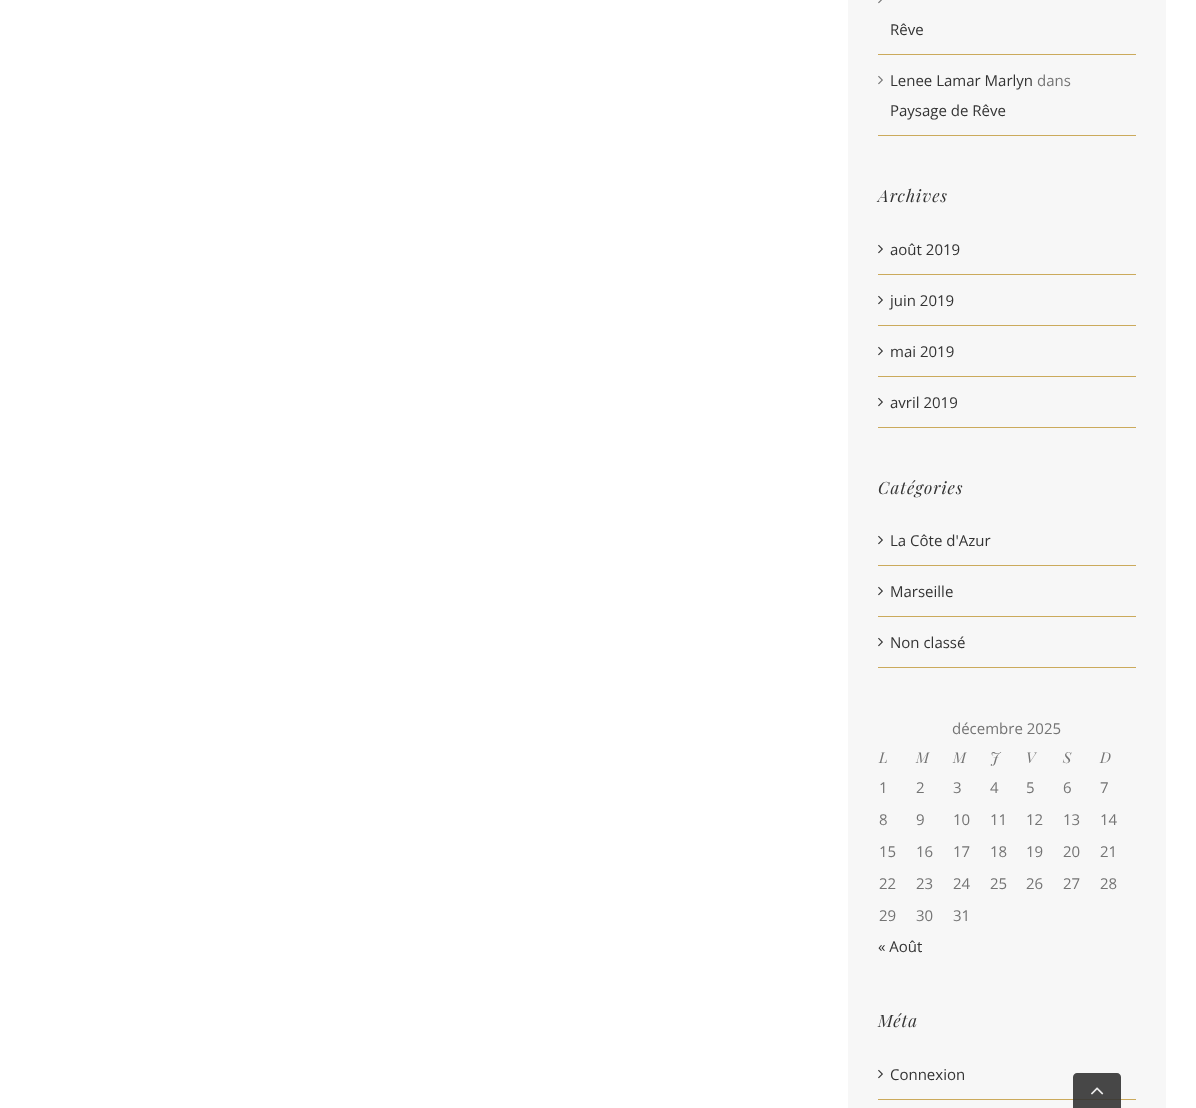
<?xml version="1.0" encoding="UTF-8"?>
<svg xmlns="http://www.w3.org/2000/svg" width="1196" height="1108">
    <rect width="100%" height="100%" fill="#FFFFFF"/>
    <rect x="848" y="0" width="318" height="1108" fill="#F7F7F7"/>
    <rect x="878" y="54" width="258" height="1" fill="#CBAA5C"/>
    <image x="878" y="0" width="4" height="4" href="img_01.png"/>
    <text x="890" y="35" font-family="Open Sans" font-size="15" fill="#333333">Rêve</text>
    <rect x="878" y="135" width="258" height="1" fill="#CBAA5C"/>
    <image x="878" y="75" width="5" height="10" href="img_02.png"/>
    <text x="890" y="86" font-family="Open Sans" font-size="15" fill="#333333">Lenee Lamar Marlyn</text>
    <text x="1037" y="86" font-family="Open Sans" font-size="15" fill="#747474">dans</text>
    <text x="890" y="116" font-family="Open Sans" font-size="15" fill="#333333">Paysage de Rêve</text>
    <text x="878" y="202" font-family="Playfair Display" font-size="17" font-style="italic" letter-spacing="1" fill="#333333">Archives</text>
    <rect x="878" y="274" width="258" height="1" fill="#CBAA5C"/>
    <image x="878" y="244" width="5" height="10" href="img_03.png"/>
    <text x="890" y="255" font-family="Open Sans" font-size="15" fill="#333333">août 2019</text>
    <rect x="878" y="325" width="258" height="1" fill="#CBAA5C"/>
    <image x="878" y="295" width="5" height="10" href="img_03.png"/>
    <text x="890" y="306" font-family="Open Sans" font-size="15" fill="#333333">juin 2019</text>
    <rect x="878" y="376" width="258" height="1" fill="#CBAA5C"/>
    <image x="878" y="346" width="5" height="10" href="img_03.png"/>
    <text x="890" y="357" font-family="Open Sans" font-size="15" fill="#333333">mai 2019</text>
    <rect x="878" y="427" width="258" height="1" fill="#CBAA5C"/>
    <image x="878" y="397" width="5" height="10" href="img_03.png"/>
    <text x="890" y="408" font-family="Open Sans" font-size="15" fill="#333333">avril 2019</text>
    <text x="878" y="494" font-family="Playfair Display" font-size="17" font-style="italic" letter-spacing="1" fill="#333333">Catégories</text>
    <rect x="878" y="565" width="258" height="1" fill="#CBAA5C"/>
    <image x="878" y="535" width="5" height="10" href="img_03.png"/>
    <text x="890" y="546" font-family="Open Sans" font-size="15" fill="#333333">La Côte d'Azur</text>
    <rect x="878" y="616" width="258" height="1" fill="#CBAA5C"/>
    <image x="878" y="586" width="5" height="10" href="img_03.png"/>
    <text x="890" y="597" font-family="Open Sans" font-size="15" fill="#333333">Marseille</text>
    <rect x="878" y="667" width="258" height="1" fill="#CBAA5C"/>
    <image x="878" y="637" width="5" height="10" href="img_03.png"/>
    <text x="890" y="648" font-family="Open Sans" font-size="15" fill="#333333">Non classé</text>
    <text x="952" y="734" font-family="Open Sans" font-size="15" fill="#747474">décembre 2025</text>
    <text x="879" y="763" font-family="Playfair Display" font-size="15" font-style="italic" letter-spacing="1" fill="#747474">L</text>
    <text x="916" y="763" font-family="Playfair Display" font-size="15" font-style="italic" letter-spacing="1" fill="#747474">M</text>
    <text x="953" y="763" font-family="Playfair Display" font-size="15" font-style="italic" letter-spacing="1" fill="#747474">M</text>
    <text x="990" y="763" font-family="Playfair Display" font-size="15" font-style="italic" letter-spacing="1" fill="#747474">J</text>
    <text x="1026" y="763" font-family="Playfair Display" font-size="15" font-style="italic" letter-spacing="1" fill="#747474">V</text>
    <text x="1063" y="763" font-family="Playfair Display" font-size="15" font-style="italic" letter-spacing="1" fill="#747474">S</text>
    <text x="1100" y="763" font-family="Playfair Display" font-size="15" font-style="italic" letter-spacing="1" fill="#747474">D</text>
    <text x="879" y="793" font-family="Open Sans" font-size="15" fill="#747474">1</text>
    <text x="916" y="793" font-family="Open Sans" font-size="15" fill="#747474">2</text>
    <text x="953" y="793" font-family="Open Sans" font-size="15" fill="#747474">3</text>
    <text x="990" y="793" font-family="Open Sans" font-size="15" fill="#747474">4</text>
    <text x="1026" y="793" font-family="Open Sans" font-size="15" fill="#747474">5</text>
    <text x="1063" y="793" font-family="Open Sans" font-size="15" fill="#747474">6</text>
    <text x="1100" y="793" font-family="Open Sans" font-size="15" fill="#747474">7</text>
    <text x="879" y="825" font-family="Open Sans" font-size="15" fill="#747474">8</text>
    <text x="916" y="825" font-family="Open Sans" font-size="15" fill="#747474">9</text>
    <text x="953" y="825" font-family="Open Sans" font-size="15" fill="#747474">10</text>
    <text x="990" y="825" font-family="Open Sans" font-size="15" fill="#747474">11</text>
    <text x="1026" y="825" font-family="Open Sans" font-size="15" fill="#747474">12</text>
    <text x="1063" y="825" font-family="Open Sans" font-size="15" fill="#747474">13</text>
    <text x="1100" y="825" font-family="Open Sans" font-size="15" fill="#747474">14</text>
    <text x="879" y="857" font-family="Open Sans" font-size="15" fill="#747474">15</text>
    <text x="916" y="857" font-family="Open Sans" font-size="15" fill="#747474">16</text>
    <text x="953" y="857" font-family="Open Sans" font-size="15" fill="#747474">17</text>
    <text x="990" y="857" font-family="Open Sans" font-size="15" fill="#747474">18</text>
    <text x="1026" y="857" font-family="Open Sans" font-size="15" fill="#747474">19</text>
    <text x="1063" y="857" font-family="Open Sans" font-size="15" fill="#747474">20</text>
    <text x="1100" y="857" font-family="Open Sans" font-size="15" fill="#747474">21</text>
    <text x="879" y="889" font-family="Open Sans" font-size="15" fill="#747474">22</text>
    <text x="916" y="889" font-family="Open Sans" font-size="15" fill="#747474">23</text>
    <text x="953" y="889" font-family="Open Sans" font-size="15" fill="#747474">24</text>
    <text x="990" y="889" font-family="Open Sans" font-size="15" fill="#747474">25</text>
    <text x="1026" y="889" font-family="Open Sans" font-size="15" fill="#747474">26</text>
    <text x="1063" y="889" font-family="Open Sans" font-size="15" fill="#747474">27</text>
    <text x="1100" y="889" font-family="Open Sans" font-size="15" fill="#747474">28</text>
    <text x="879" y="921" font-family="Open Sans" font-size="15" fill="#747474">29</text>
    <text x="916" y="921" font-family="Open Sans" font-size="15" fill="#747474">30</text>
    <text x="953" y="921" font-family="Open Sans" font-size="15" fill="#747474">31</text>
    <text x="878" y="952" font-family="Open Sans" font-size="15" fill="#333333">« Août</text>
    <text x="878" y="1027" font-family="Playfair Display" font-size="17" font-style="italic" letter-spacing="1" fill="#333333">Méta</text>
    <rect x="878" y="1099" width="258" height="1" fill="#CBAA5C"/>
    <image x="878" y="1069" width="5" height="10" href="img_03.png"/>
    <text x="890" y="1080" font-family="Open Sans" font-size="15" fill="#333333">Connexion</text>
    <path d="M 1077 1073 H 1117 C 1119 1073 1121 1075 1121 1077 V 1108 H 1073 V 1077 C 1073 1075 1075 1073 1077 1073 Z" fill="#333333" fill-opacity="0.9"/>
    <image x="1091" y="1087" width="13" height="8" href="img_04.png"/>
</svg>
